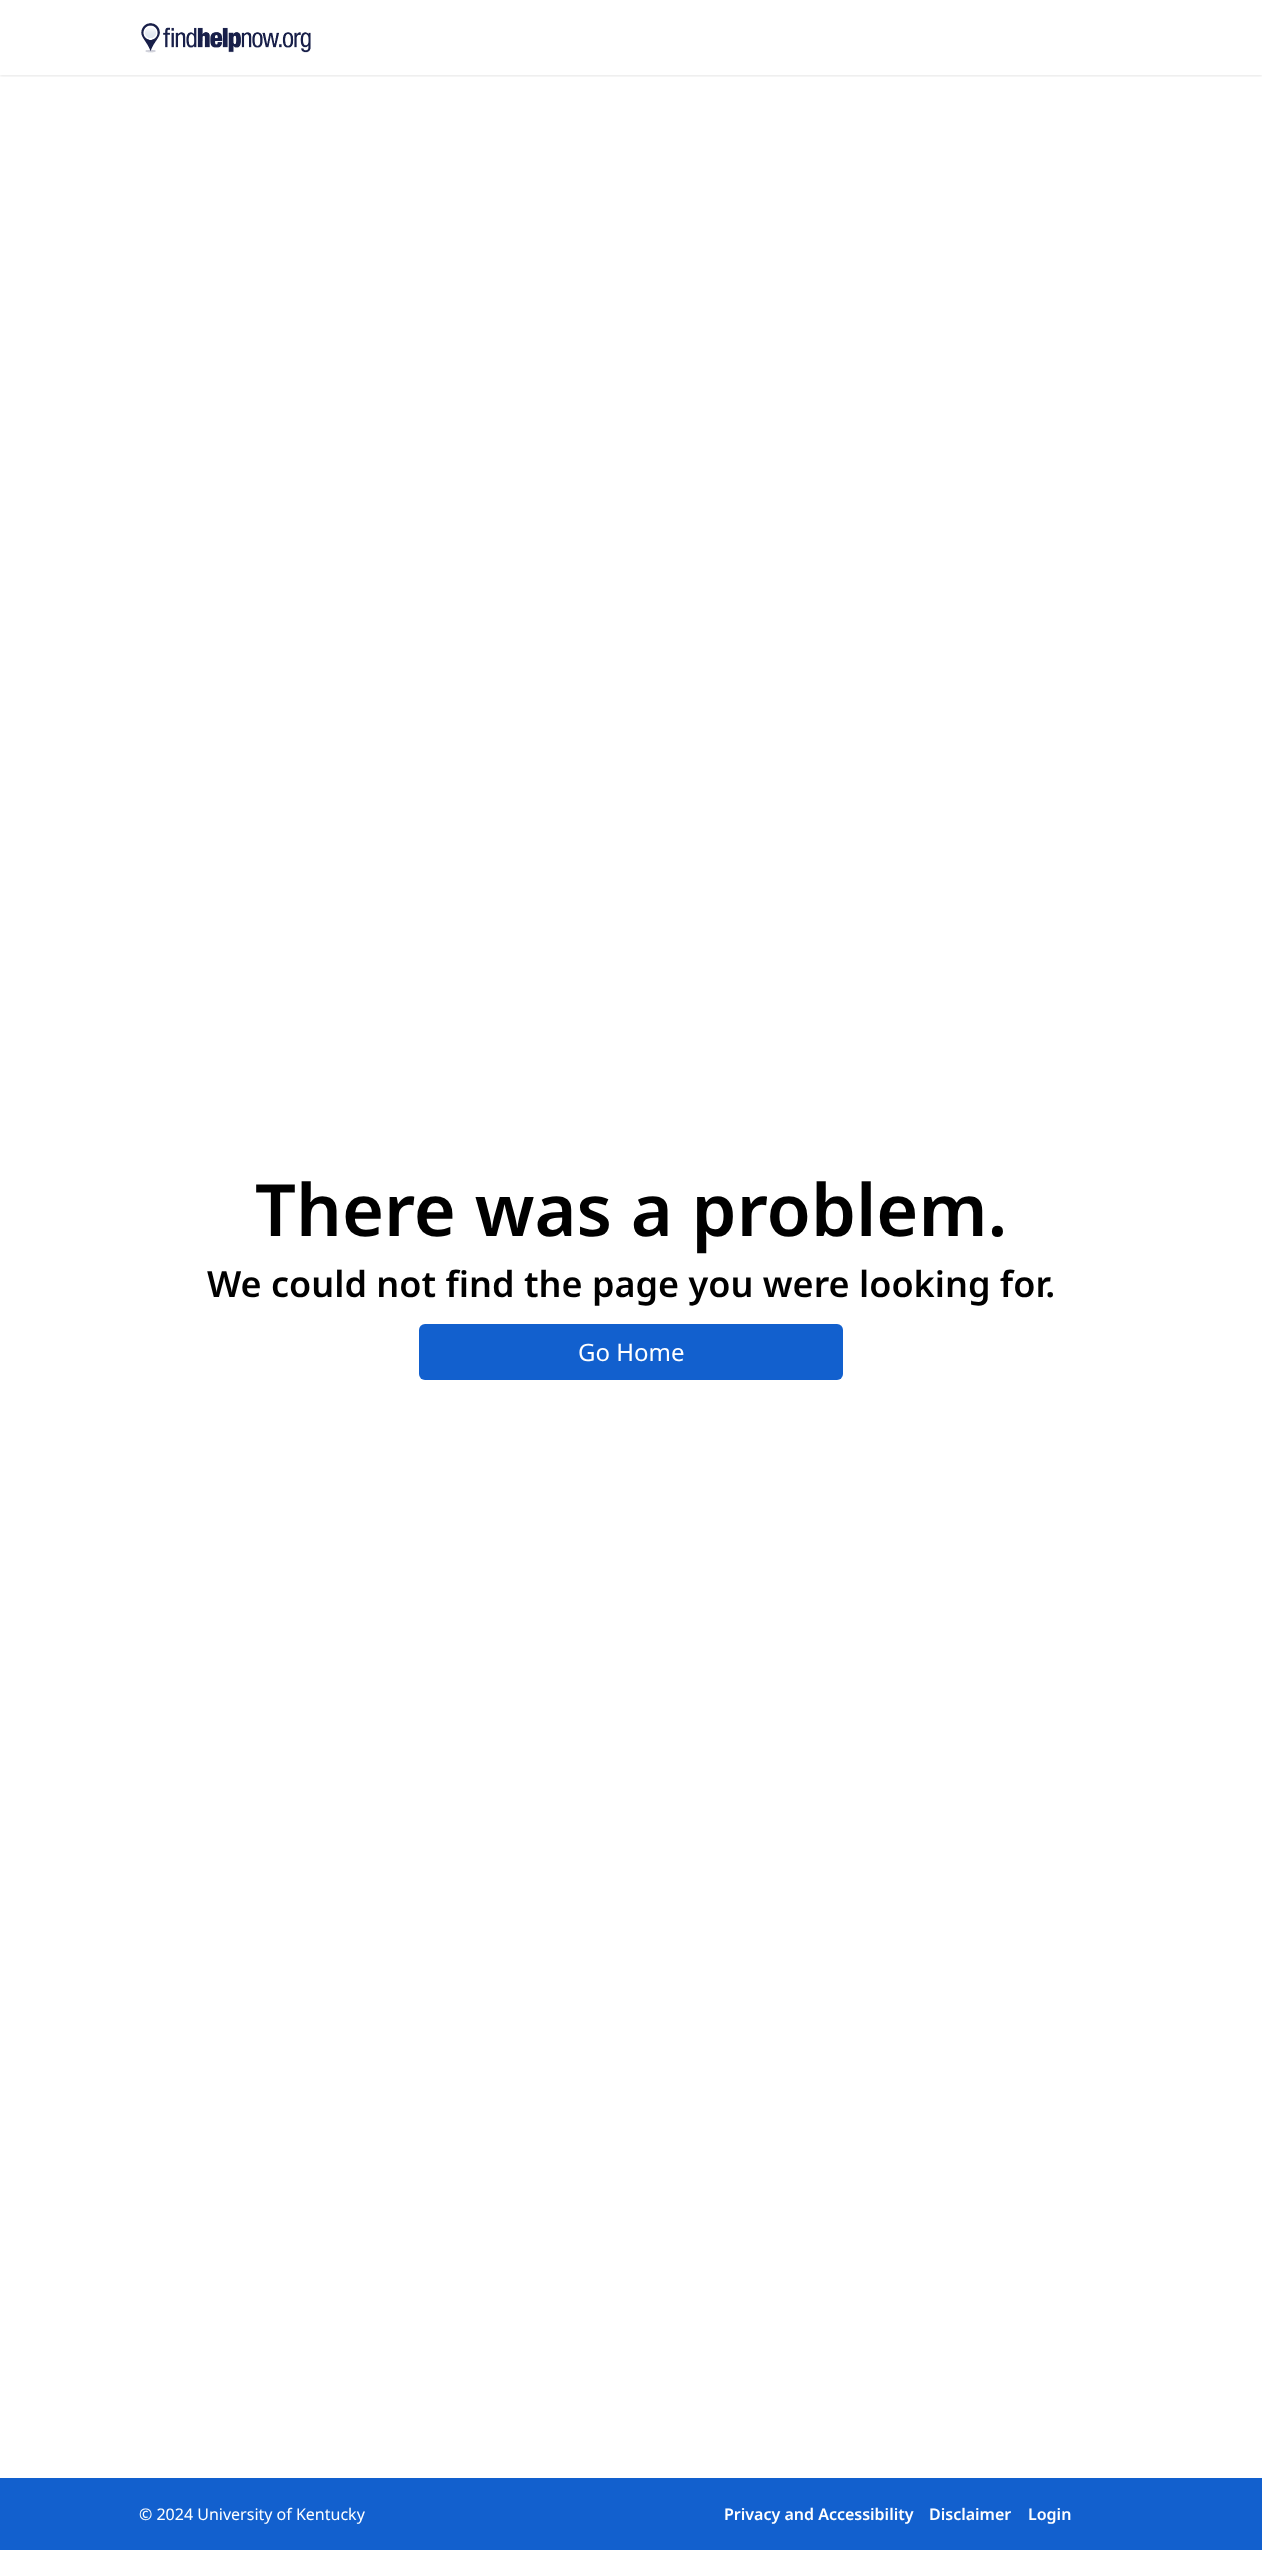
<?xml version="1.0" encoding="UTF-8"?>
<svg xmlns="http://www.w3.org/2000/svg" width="1262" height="2550">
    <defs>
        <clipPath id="clip1"><rect x="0" y="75" width="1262" height="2"/></clipPath>
        <filter id="blur1" x="-50%" y="-200%" width="200%" height="500%"><feGaussianBlur stdDeviation="1.5"/></filter>
    </defs>
    <rect width="100%" height="100%" fill="#FFFFFF"/>
    <g clip-path="url(#clip1)">
        <rect x="0" y="1" width="1262" height="75" fill="#000000" fill-opacity="0.1" filter="url(#blur1)"/>
    </g>
    <image x="141" y="23" width="170" height="30" href="img_01.png"/>
    <text x="255" y="1236" font-family="Noto Sans" font-size="72" font-weight="600" fill="#000000">There was a problem.</text>
    <text x="207" y="1297" font-family="Noto Sans" font-size="36" font-weight="600" fill="#000000">We could not find the page you were looking for.</text>
    <rect x="419" y="1324" width="424" height="56" rx="6" fill="#1260CE"/>
    <text x="578" y="1361" font-family="Noto Sans" font-size="24" fill="#FFFFFF">Go Home</text>
    <rect x="0" y="2478" width="1262" height="72" fill="#1260CE"/>
    <text x="139" y="2520" font-family="Noto Sans" font-size="16" fill="#FFFFFF">© 2024 University of Kentucky</text>
    <text x="724" y="2520" font-family="Noto Sans" font-size="16" font-weight="600" fill="#FFFFFF">Privacy and Accessibility</text>
    <text x="929" y="2520" font-family="Noto Sans" font-size="16" font-weight="600" fill="#FFFFFF">Disclaimer</text>
    <text x="1028" y="2520" font-family="Noto Sans" font-size="16" font-weight="600" fill="#FFFFFF">Login</text>
</svg>
